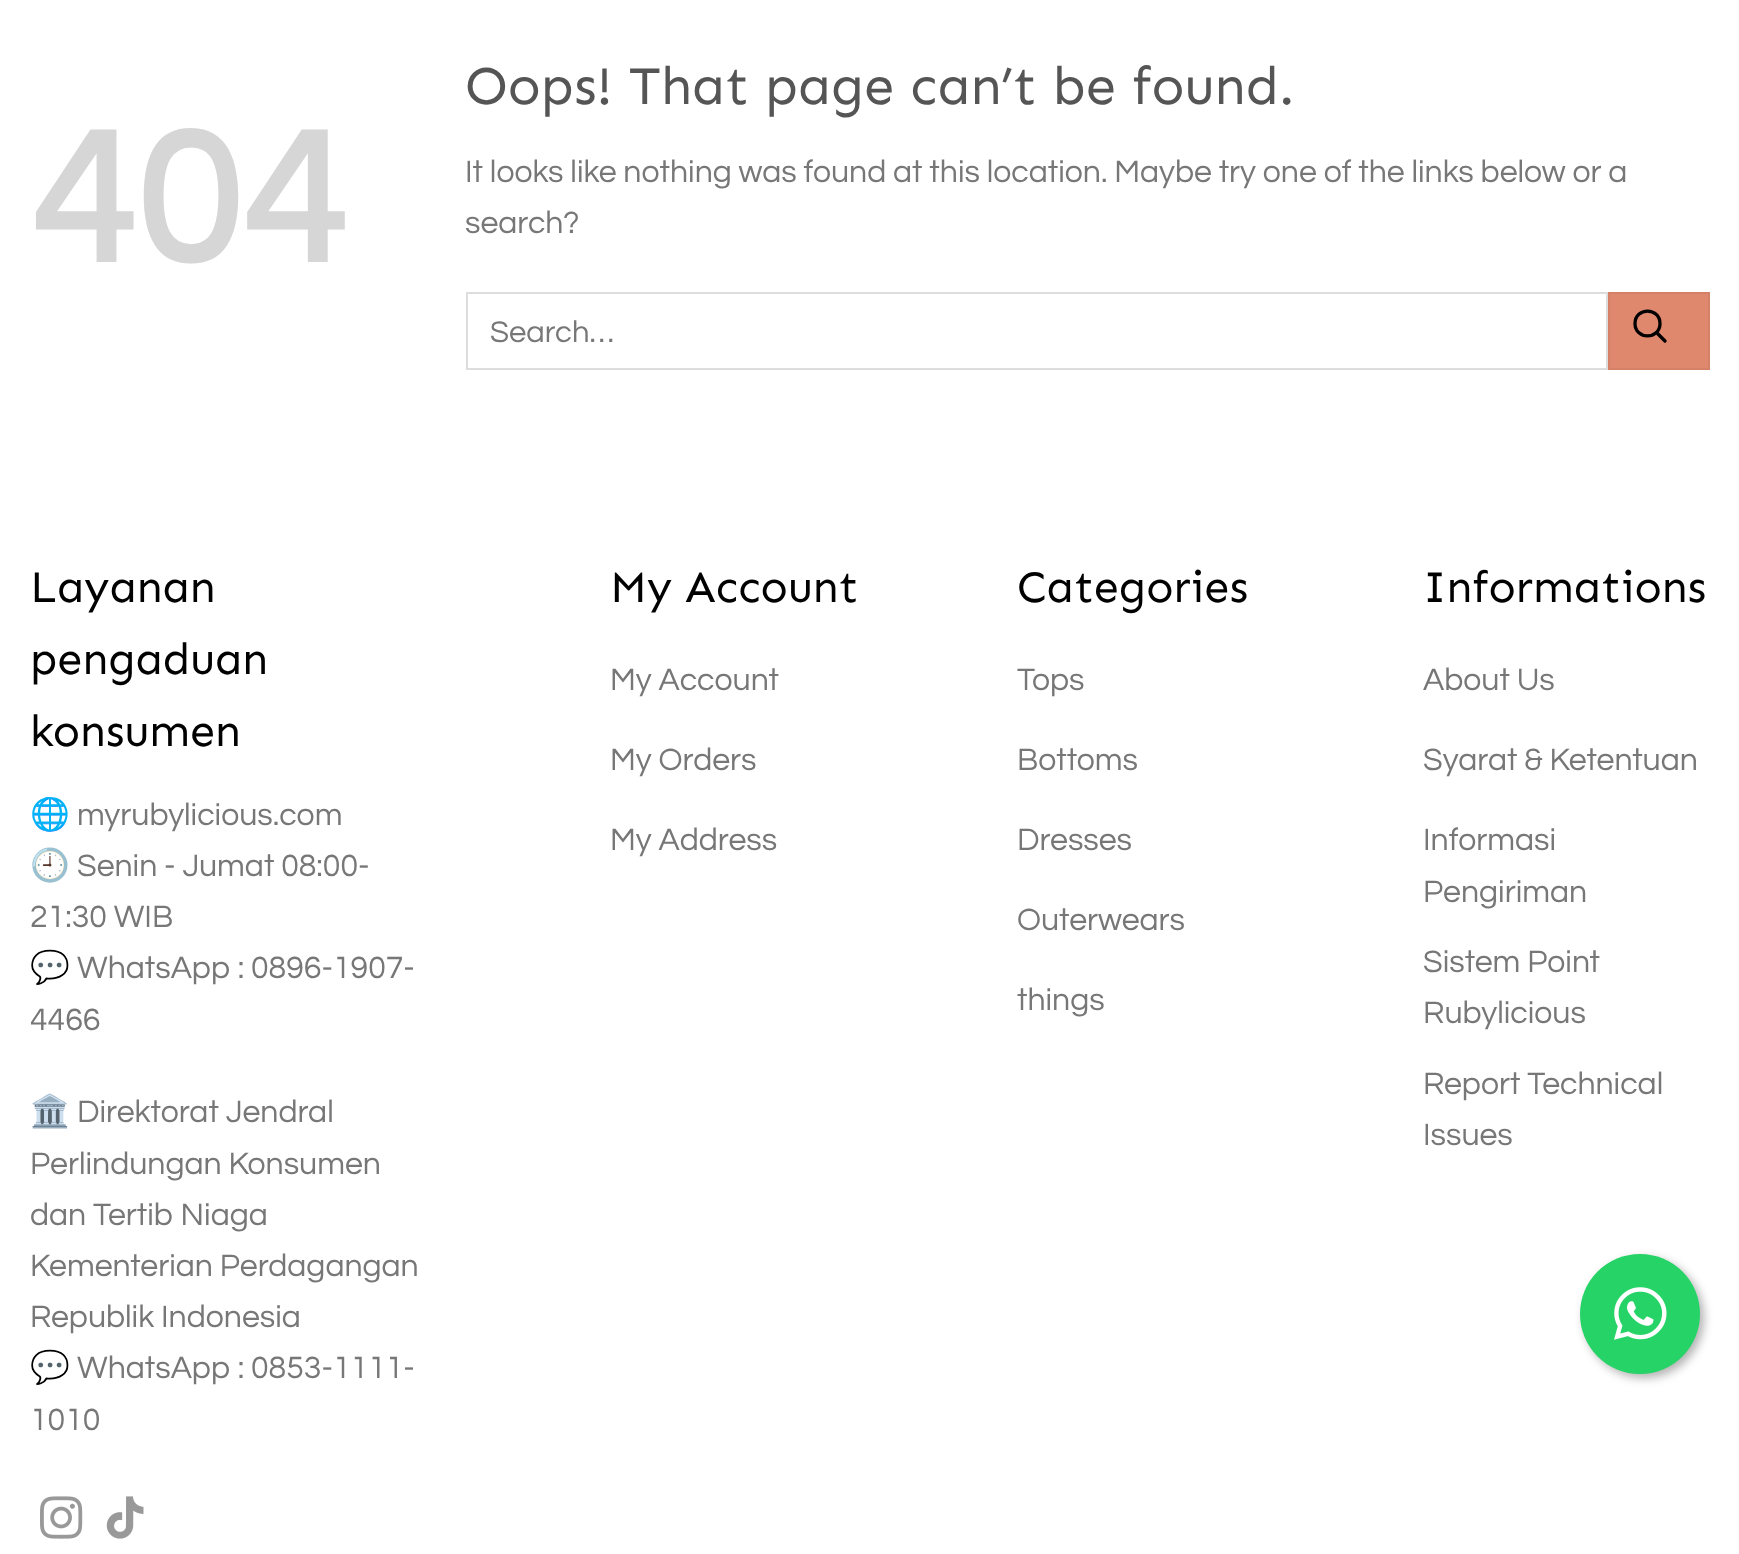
<?xml version="1.0" encoding="UTF-8"?>
<svg xmlns="http://www.w3.org/2000/svg" width="1739" height="1554">
    <defs>
        <filter id="blur1" x="-50%" y="-200%" width="200%" height="500%"><feGaussianBlur stdDeviation="5"/></filter>
    </defs>
    <rect width="100%" height="100%" fill="#FFFFFF"/>
    <text x="30" y="262" font-family="Questrial" font-size="192" font-weight="700" fill="#D6D6D6">404</text>
    <text x="465" y="104" font-family="Sen" font-size="54.4" fill="#555555">Oops! That page can’t be found.</text>
    <text font-family="Questrial" font-size="32" fill="#777777">
        <tspan x="465" y="182">It looks like nothing was found at this location. Maybe try one of the links below or a</tspan>
        <tspan x="465" y="233">search?</tspan>
    </text>
    <rect x="467" y="293" width="1140" height="76" fill="none" stroke="#DDDDDD" stroke-width="2"/>
    <text x="490" y="342" font-family="Questrial" font-size="31" fill="#777777">Search…</text>
    <rect x="1609" y="293" width="100" height="76" fill="#E0886D" stroke="#D58168" stroke-width="2"/>
    <path d="M 1656.5 332.5 L 1665 341 M 1660 323.5 C 1660 340 1635 340 1635 323.5 C 1635 307 1660 307 1660 323.5 Z" fill="none" stroke="#000000" stroke-width="3.3" stroke-linecap="round" stroke-linejoin="round"/>
    <text font-family="Sen" font-size="45" fill="#000000">
        <tspan x="30" y="602">Layanan</tspan>
        <tspan x="30" y="674">pengaduan</tspan>
        <tspan x="30" y="746">konsumen</tspan>
    </text>
    <text x="30" y="825" font-family="Noto Color Emoji" font-size="32" fill="#777777">🌐</text>
    <text x="77" y="825" font-family="Questrial" font-size="32" fill="#777777">myrubylicious.com</text>
    <text x="30" y="876" font-family="Noto Color Emoji" font-size="32" fill="#777777">🕘</text>
    <text x="77" y="876" font-family="Questrial" font-size="32" fill="#777777">Senin - Jumat 08:00-</text>
    <text x="30" y="927" font-family="Questrial" font-size="32" fill="#777777">21:30 WIB</text>
    <text x="30" y="978" font-family="Noto Color Emoji" font-size="32" fill="#777777">💬</text>
    <text x="77" y="978" font-family="Questrial" font-size="32" fill="#777777">WhatsApp : 0896-1907-</text>
    <text x="30" y="1030" font-family="Questrial" font-size="32" fill="#777777">4466</text>
    <text x="30" y="1122" font-family="Noto Color Emoji" font-size="32" fill="#777777">🏛️</text>
    <text x="77" y="1122" font-family="Questrial" font-size="32" fill="#777777">Direktorat Jendral</text>
    <text font-family="Questrial" font-size="32" fill="#777777">
        <tspan x="30" y="1174">Perlindungan Konsumen</tspan>
        <tspan x="30" y="1225">dan Tertib Niaga</tspan>
        <tspan x="30" y="1276">Kementerian Perdagangan</tspan>
        <tspan x="30" y="1327">Republik Indonesia</tspan>
    </text>
    <text x="30" y="1378" font-family="Noto Color Emoji" font-size="32" fill="#777777">💬</text>
    <text x="77" y="1378" font-family="Questrial" font-size="32" fill="#777777">WhatsApp : 0853-1111-</text>
    <text x="30" y="1430" font-family="Questrial" font-size="32" fill="#777777">1010</text>
    <image x="40" y="1496" width="43" height="43" href="img_01.png"/>
    <image x="106" y="1496" width="38" height="43" href="img_02.png"/>
    <text x="610" y="602" font-family="Sen" font-size="45" fill="#000000">My Account</text>
    <text x="610" y="690" font-family="Questrial" font-size="32" fill="#777777">My Account</text>
    <text x="610" y="770" font-family="Questrial" font-size="32" fill="#777777">My Orders</text>
    <text x="610" y="850" font-family="Questrial" font-size="32" fill="#777777">My Address</text>
    <text x="1017" y="602" font-family="Sen" font-size="45" fill="#000000">Categories</text>
    <text x="1017" y="690" font-family="Questrial" font-size="32" fill="#777777">Tops</text>
    <text x="1017" y="770" font-family="Questrial" font-size="32" fill="#777777">Bottoms</text>
    <text x="1017" y="850" font-family="Questrial" font-size="32" fill="#777777">Dresses</text>
    <text x="1017" y="930" font-family="Questrial" font-size="32" fill="#777777">Outerwears</text>
    <text x="1017" y="1010" font-family="Questrial" font-size="32" fill="#777777">things</text>
    <text x="1423" y="602" font-family="Sen" font-size="45" fill="#000000">Informations</text>
    <text x="1423" y="690" font-family="Questrial" font-size="32" fill="#777777">About Us</text>
    <text x="1423" y="770" font-family="Questrial" font-size="32" fill="#777777">Syarat &amp; Ketentuan</text>
    <text font-family="Questrial" font-size="32" fill="#777777">
        <tspan x="1423" y="850">Informasi</tspan>
        <tspan x="1423" y="902">Pengiriman</tspan>
    </text>
    <text font-family="Questrial" font-size="32" fill="#777777">
        <tspan x="1423" y="972">Sistem Point</tspan>
        <tspan x="1423" y="1023">Rubylicious</tspan>
    </text>
    <text font-family="Questrial" font-size="32" fill="#777777">
        <tspan x="1423" y="1094">Report Technical</tspan>
        <tspan x="1423" y="1145">Issues</tspan>
    </text>
    <rect x="1584" y="1258" width="120" height="120" rx="60" fill="#000000" fill-opacity="0.3" filter="url(#blur1)"/>
    <circle cx="1640" cy="1314" r="60" fill="#25D366"/>
    <image x="1614" y="1287" width="53" height="53" href="img_03.png"/>
</svg>
